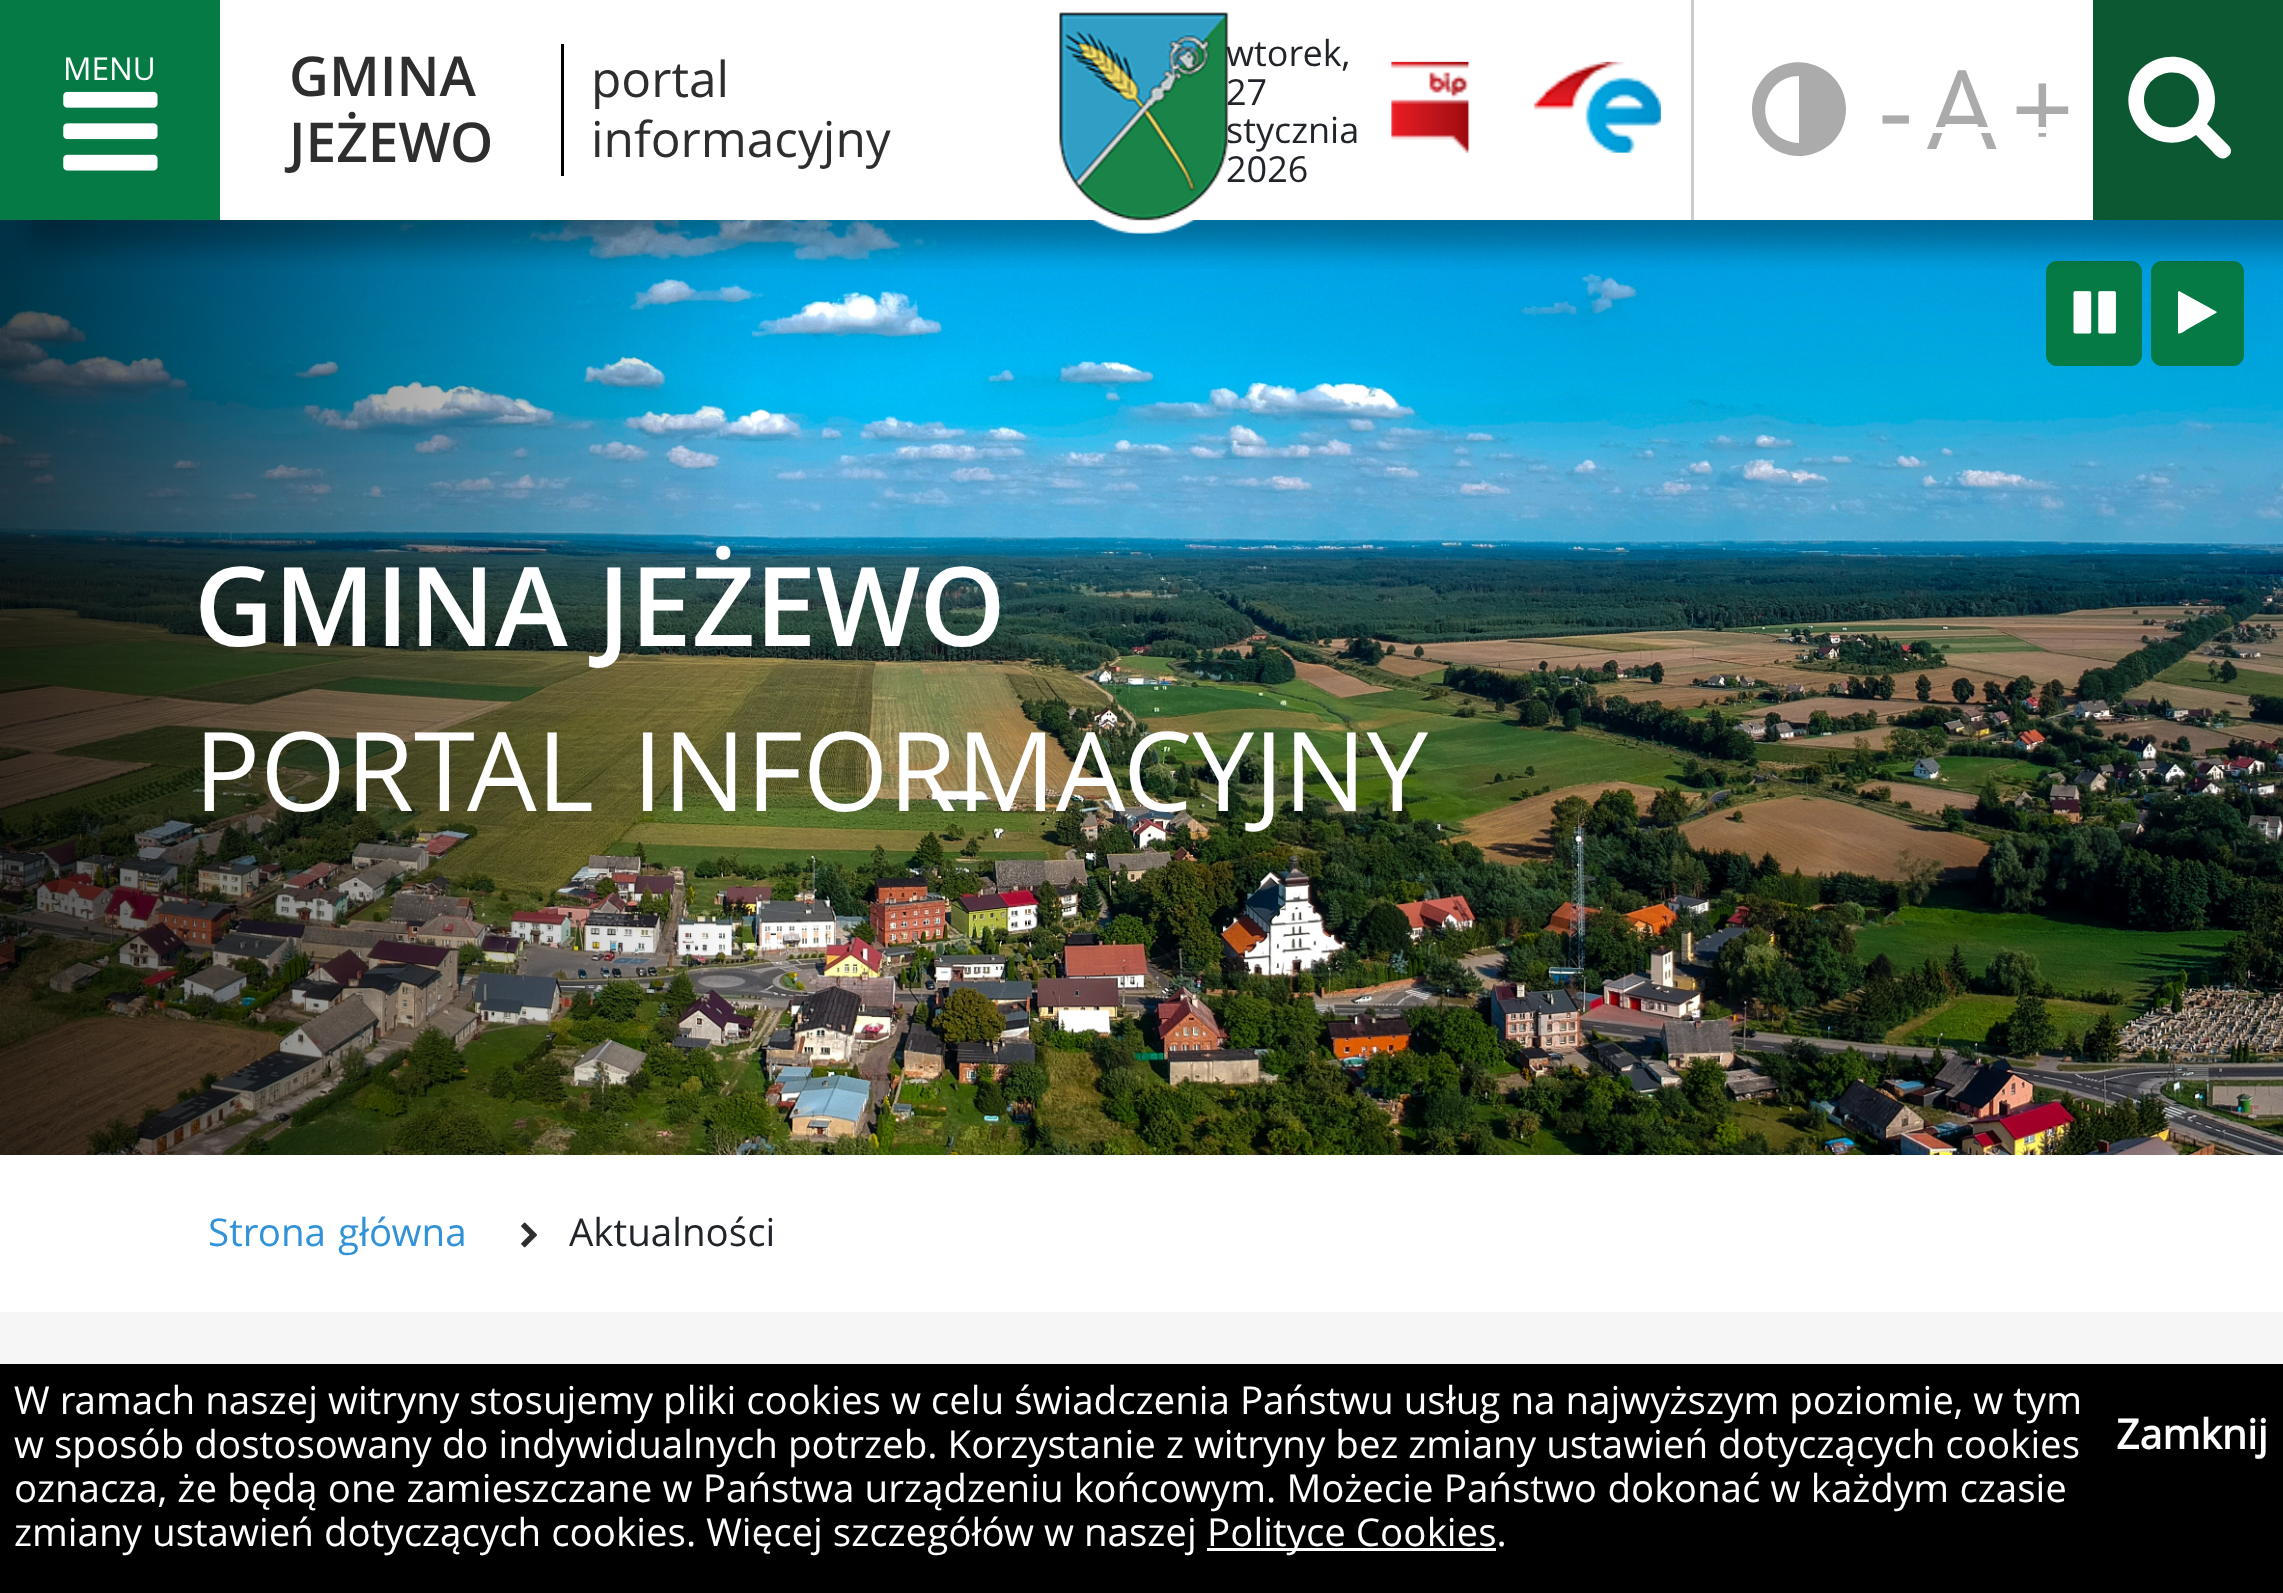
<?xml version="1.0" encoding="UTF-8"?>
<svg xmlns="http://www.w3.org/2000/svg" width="2283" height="1593">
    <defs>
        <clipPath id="clip1"><rect x="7" y="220" width="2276" height="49"/></clipPath>
        <filter id="blur1" x="-50%" y="-200%" width="200%" height="500%"><feGaussianBlur stdDeviation="14"/></filter>
    </defs>
    <rect width="100%" height="100%" fill="#FFFFFF"/>
    <image x="0" y="220" width="2283" height="935" href="img_05.png"/>
    <rect x="2046" y="261" width="96" height="105" rx="11" fill="#057A44"/>
    <rect x="2151" y="261" width="93" height="105" rx="11" fill="#057A44"/>
    <g clip-path="url(#clip1)">
        <rect x="28" y="28" width="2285" height="220" fill="#000000" fill-opacity="0.3" filter="url(#blur1)"/>
    </g>
    <rect x="0" y="0" width="220" height="220" fill="#057A44"/>
    <text x="63" y="80" font-family="Open Sans" font-size="31.5" fill="#FFFFFF">MENU</text>
    <image x="63" y="91" width="95" height="80" href="img_01.png"/>
    <rect x="561" y="44" width="3" height="132" fill="#000000"/>
    <text font-family="Open Sans" font-size="55" font-weight="600" fill="#2E2E2E">
        <tspan x="289" y="96">GMINA</tspan>
        <tspan x="289" y="162">JEŻEWO</tspan>
    </text>
    <text font-family="Open Sans" font-size="49.5" fill="#2E2E2E">
        <tspan x="591" y="97">portal</tspan>
        <tspan x="591" y="157">informacyjny</tspan>
    </text>
    <image x="1059" y="12" width="170" height="222" href="img_02.png"/>
    <rect x="1691" y="0" width="3" height="220" fill="#CCCCCC"/>
    <text font-family="Open Sans" font-size="36" fill="#212529">
        <tspan x="1226" y="66">wtorek,</tspan>
        <tspan x="1226" y="105">27</tspan>
        <tspan x="1226" y="143">stycznia</tspan>
        <tspan x="1226" y="182">2026</tspan>
    </text>
    <image x="1391" y="61" width="79" height="92" href="img_03.png"/>
    <image x="1534" y="61" width="127" height="92" href="img_04.png"/>
    <path d="M 1799 143 C 1792 143 1784 140 1778 136 C 1753 116 1767 76 1799 76 Z M 1846 109 C 1846 65 1789 45 1762 80 C 1755 89 1752 99 1752 109 C 1752 120 1755 130 1762 138 C 1789 173 1846 154 1846 109 Z" fill="#ABABAB"/>
    <text x="1878" y="149" font-family="Open Sans" font-size="110" fill="#ABABAB">-</text>
    <text x="1927" y="149" font-family="Open Sans" font-size="110" fill="#ABABAB">A</text>
    <rect x="1928" y="127" width="69" height="6" fill="#FFFFFF"/>
    <text x="2011" y="149" font-family="Open Sans" font-size="110" fill="#ABABAB">+</text>
    <rect x="2038" y="127" width="8" height="6" fill="#FFFFFF"/>
    <rect x="2093" y="0" width="190" height="220" fill="#0B5833"/>
    <path d="M 2199 100 C 2199 106 2197 112 2193 117 C 2177 137 2144 126 2144 100 C 2144 74 2177 63 2193 82 C 2197 87 2199 93 2199 100 Z M 2231 151 C 2231 149 2230 147 2228 145 L 2207 124 C 2215 114 2217 100 2213 87 C 2200 46 2141 47 2130 89 C 2127 99 2128 109 2133 119 C 2144 142 2175 150 2196 135 L 2210 149 C 2214 153 2220 162 2227 157 C 2229 156 2231 154 2231 151 Z" fill="#FFFFFF"/>
    <image x="2073" y="291" width="43" height="43" href="img_06.png"/>
    <path d="M 2216 313 L 2217 312 L 2210 308 L 2179 291 L 2178 292 V 333 C 2179 335 2185 331 2186 330 Z" fill="#FFFFFF"/>
    <text x="194" y="646" word-spacing="1" font-family="Open Sans" font-size="110" font-weight="600" fill="#FFFFFF">GMINA JEŻEWO</text>
    <text x="194" y="811" word-spacing="10" font-family="Open Sans" font-size="110" fill="#FFFFFF">PORTAL INFORMACYJNY</text>
    <text x="208" y="1246" word-spacing="2" font-family="Open Sans" font-size="38.5" fill="#3192D7">Strona główna</text>
    <image x="521" y="1222" width="16" height="26" href="img_07.png"/>
    <text x="569" y="1246" font-family="Open Sans" font-size="38.5" fill="#212529">Aktualności</text>
    <rect x="0" y="1312" width="2283" height="52" fill="#F6F6F6"/>
    <rect x="0" y="1364" width="2283" height="229" fill="#000000"/>
    <text font-family="Open Sans" font-size="38.5" fill="#FFFFFF">
        <tspan x="14" y="1414">W ramach naszej witryny stosujemy pliki cookies w celu świadczenia Państwu usług na najwyższym poziomie, w tym</tspan>
        <tspan x="14" y="1458">w sposób dostosowany do indywidualnych potrzeb. Korzystanie z witryny bez zmiany ustawień dotyczących cookies</tspan>
        <tspan x="14" y="1502" word-spacing="0.25">oznacza, że będą one zamieszczane w Państwa urządzeniu końcowym. Możecie Państwo dokonać w każdym czasie</tspan>
        <tspan x="14" y="1546">zmiany ustawień dotyczących cookies. Więcej szczegółów w naszej</tspan>
    </text>
    <rect x="1207" y="1548" width="289" height="3" fill="#FFFFFF"/>
    <text x="1207" y="1546" font-family="Open Sans" font-size="38.5" fill="#FFFFFF">Polityce Cookies.</text>
    <text x="2116" y="1449" font-family="Open Sans" font-size="41" font-weight="700" fill="#FFFFFF">Zamknij</text>
</svg>
